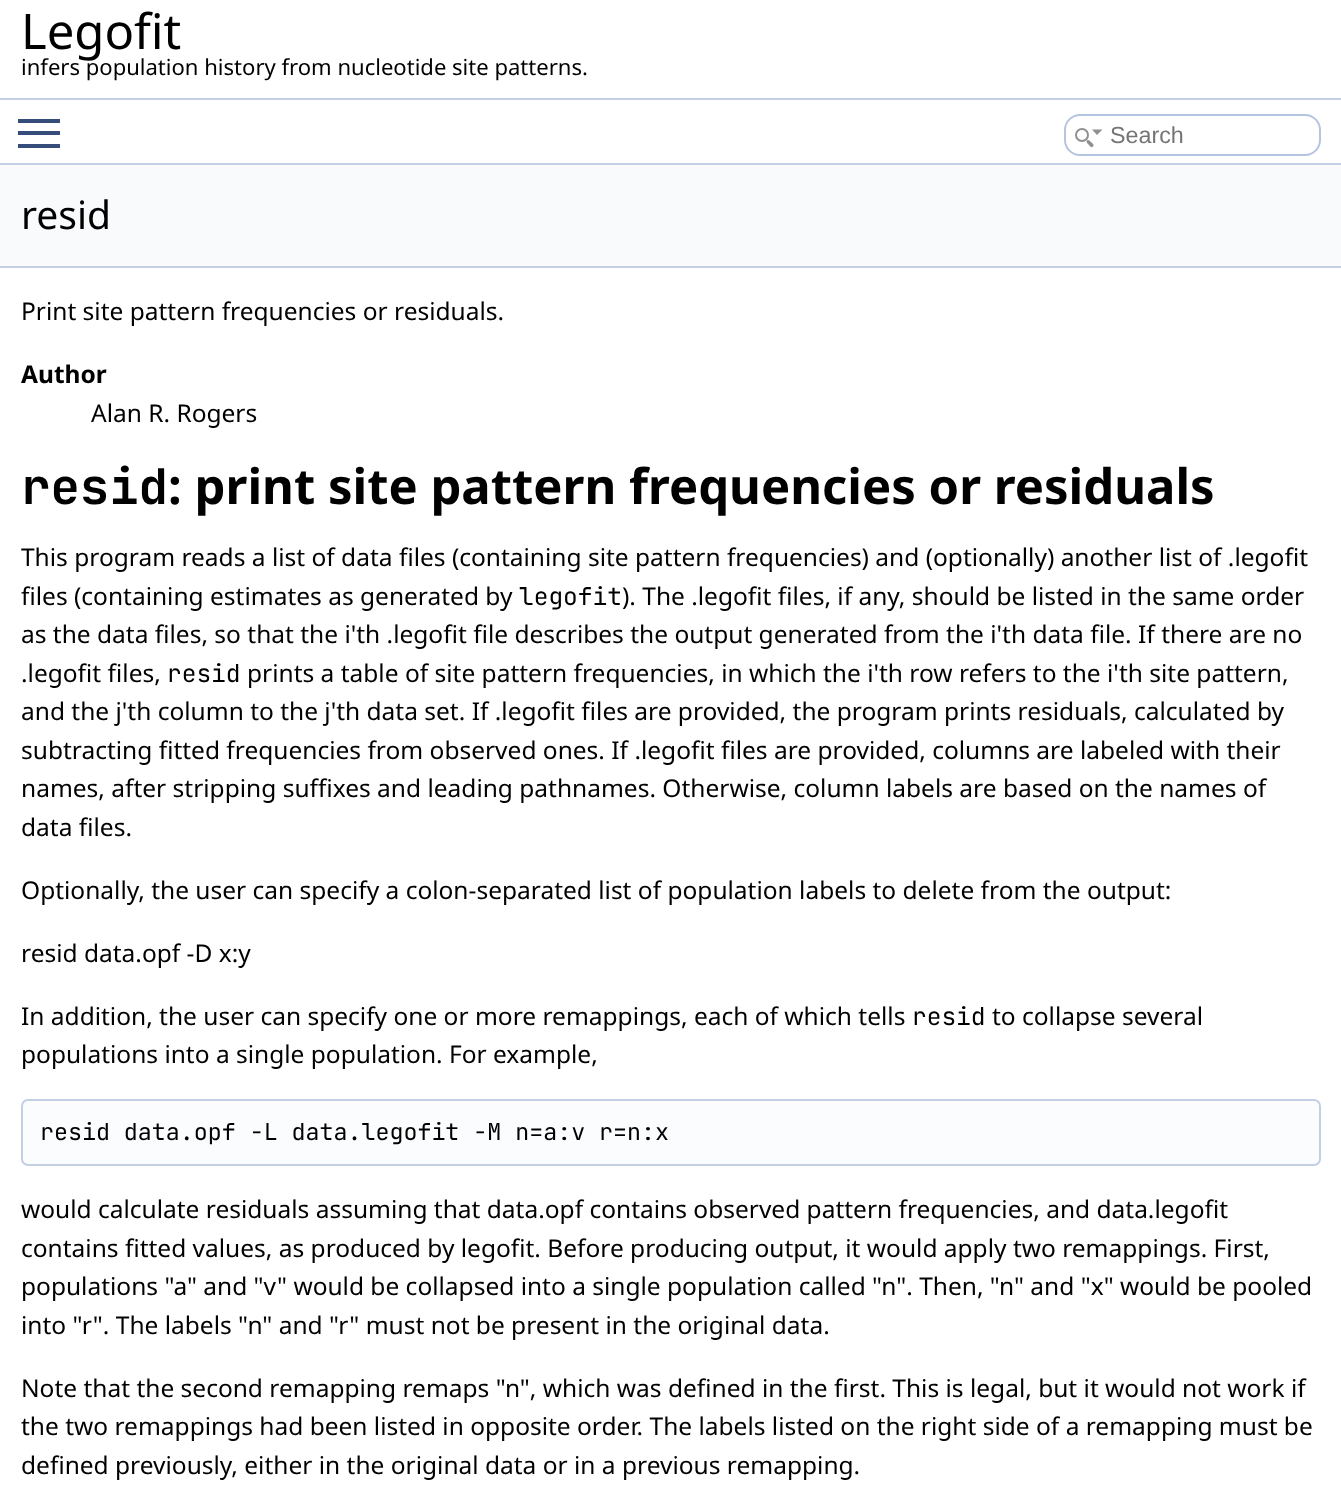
<?xml version="1.0" encoding="UTF-8"?>
<svg xmlns="http://www.w3.org/2000/svg" width="1341" height="1497">
    <rect width="100%" height="100%" fill="#FFFFFF"/>
    <rect x="0" y="98" width="1341" height="2" fill="#C4CFE5"/>
    <text x="21" y="49" font-family="Noto Sans" font-size="49" fill="#000000">Legofit</text>
    <text x="21" y="75" font-family="Noto Sans" font-size="22.05" fill="#000000">infers population history from nucleotide site patterns.</text>
    <rect x="18" y="131" width="42" height="4" fill="#364D7C"/>
    <rect x="18" y="119" width="42" height="4" fill="#364D7C"/>
    <rect x="18" y="144" width="42" height="4" fill="#364D7C"/>
    <rect x="1065" y="115" width="255" height="40" rx="15" fill="none" stroke="#B6C4DF" stroke-width="2"/>
    <circle cx="1082" cy="135" r="6" fill="none" stroke="#909090" stroke-width="2"/>
    <path d="M 1092 129.5 H 1102.5 L 1097 135 Z M 1087 140.5 C 1088.5 139 1090.5 141.5 1091.5 142.5 C 1092.5 143.5 1094.5 145 1093 146.5 C 1091.5 148.5 1090 146 1089 145 C 1088 144 1085.5 142 1087 140.5 Z" fill="#909090"/>
    <text x="1110" y="143" font-family="Liberation Sans" font-size="23.3" fill="#757575">Search</text>
    <rect x="0" y="163" width="1341" height="2" fill="#C4CFE5"/>
    <rect x="0" y="165" width="1341" height="101" fill="#F9FAFC"/>
    <rect x="0" y="266" width="1341" height="2" fill="#C4CFE5"/>
    <text x="21" y="229" font-family="Noto Sans" font-size="39" fill="#000000">resid</text>
    <text x="21" y="320" font-family="Noto Sans" font-size="24.5" fill="#000000">Print site pattern frequencies or residuals.</text>
    <text x="21" y="383" font-family="Noto Sans" font-size="24.5" font-weight="700" fill="#000000">Author</text>
    <text x="91" y="422" font-family="Noto Sans" font-size="24.5" fill="#000000">Alan R. Rogers</text>
    <text x="21" y="504" font-family="JetBrains Mono" font-size="49" font-weight="700" fill="#000000">resid</text>
    <text x="168" y="504" font-family="Noto Sans" font-size="49" font-weight="700" fill="#000000">: print site pattern frequencies or residuals</text>
    <text font-family="Noto Sans" font-size="24.5" fill="#000000">
        <tspan x="21" y="566">This program reads a list of data files (containing site pattern frequencies) and (optionally) another list of .legofit</tspan>
        <tspan x="21" y="605">files (containing estimates as generated by</tspan>
    </text>
    <text x="519" y="605" font-family="JetBrains Mono" font-size="24.5" fill="#000000">legofit</text>
    <text x="622" y="605" font-family="Noto Sans" font-size="24.5" fill="#000000">). The .legofit files, if any, should be listed in the same order</text>
    <text font-family="Noto Sans" font-size="24.5" fill="#000000">
        <tspan x="21" y="643">as the data files, so that the i'th .legofit file describes the output generated from the i'th data file. If there are no</tspan>
        <tspan x="21" y="682">.legofit files,</tspan>
    </text>
    <text x="167" y="682" font-family="JetBrains Mono" font-size="24.5" fill="#000000">resid</text>
    <text x="247" y="682" font-family="Noto Sans" font-size="24.5" fill="#000000">prints a table of site pattern frequencies, in which the i'th row refers to the i'th site pattern,</text>
    <text font-family="Noto Sans" font-size="24.5" fill="#000000">
        <tspan x="21" y="720">and the j'th column to the j'th data set. If .legofit files are provided, the program prints residuals, calculated by</tspan>
        <tspan x="21" y="759">subtracting fitted frequencies from observed ones. If .legofit files are provided, columns are labeled with their</tspan>
        <tspan x="21" y="797">names, after stripping suffixes and leading pathnames. Otherwise, column labels are based on the names of</tspan>
        <tspan x="21" y="836">data files.</tspan>
    </text>
    <text x="21" y="899" font-family="Noto Sans" font-size="24.5" fill="#000000">Optionally, the user can specify a colon-separated list of population labels to delete from the output:</text>
    <text x="21" y="962" font-family="Noto Sans" font-size="24.5" fill="#000000">resid data.opf -D x:y</text>
    <text x="21" y="1025" font-family="Noto Sans" font-size="24.5" fill="#000000">In addition, the user can specify one or more remappings, each of which tells</text>
    <text x="912" y="1025" font-family="JetBrains Mono" font-size="24.5" fill="#000000">resid</text>
    <text x="992" y="1025" font-family="Noto Sans" font-size="24.5" fill="#000000">to collapse several</text>
    <text x="21" y="1063" font-family="Noto Sans" font-size="24.5" fill="#000000">populations into a single population. For example,</text>
    <rect x="22" y="1100" width="1298" height="65" rx="6" fill="#FBFCFD" stroke="#C4CFE5" stroke-width="2"/>
    <text x="40" y="1140" font-family="JetBrains Mono" font-size="23.3" fill="#000000">resid data.opf -L data.legofit -M n=a:v r=n:x</text>
    <text font-family="Noto Sans" font-size="24.5" fill="#000000">
        <tspan x="21" y="1218">would calculate residuals assuming that data.opf contains observed pattern frequencies, and data.legofit</tspan>
        <tspan x="21" y="1257">contains fitted values, as produced by legofit. Before producing output, it would apply two remappings. First,</tspan>
        <tspan x="21" y="1295">populations "a" and "v" would be collapsed into a single population called "n". Then, "n" and "x" would be pooled</tspan>
        <tspan x="21" y="1334">into "r". The labels "n" and "r" must not be present in the original data.</tspan>
    </text>
    <text font-family="Noto Sans" font-size="24.5" fill="#000000">
        <tspan x="21" y="1397">Note that the second remapping remaps "n", which was defined in the first. This is legal, but it would not work if</tspan>
        <tspan x="21" y="1435">the two remappings had been listed in opposite order. The labels listed on the right side of a remapping must be</tspan>
        <tspan x="21" y="1474">defined previously, either in the original data or in a previous remapping.</tspan>
    </text>
</svg>
